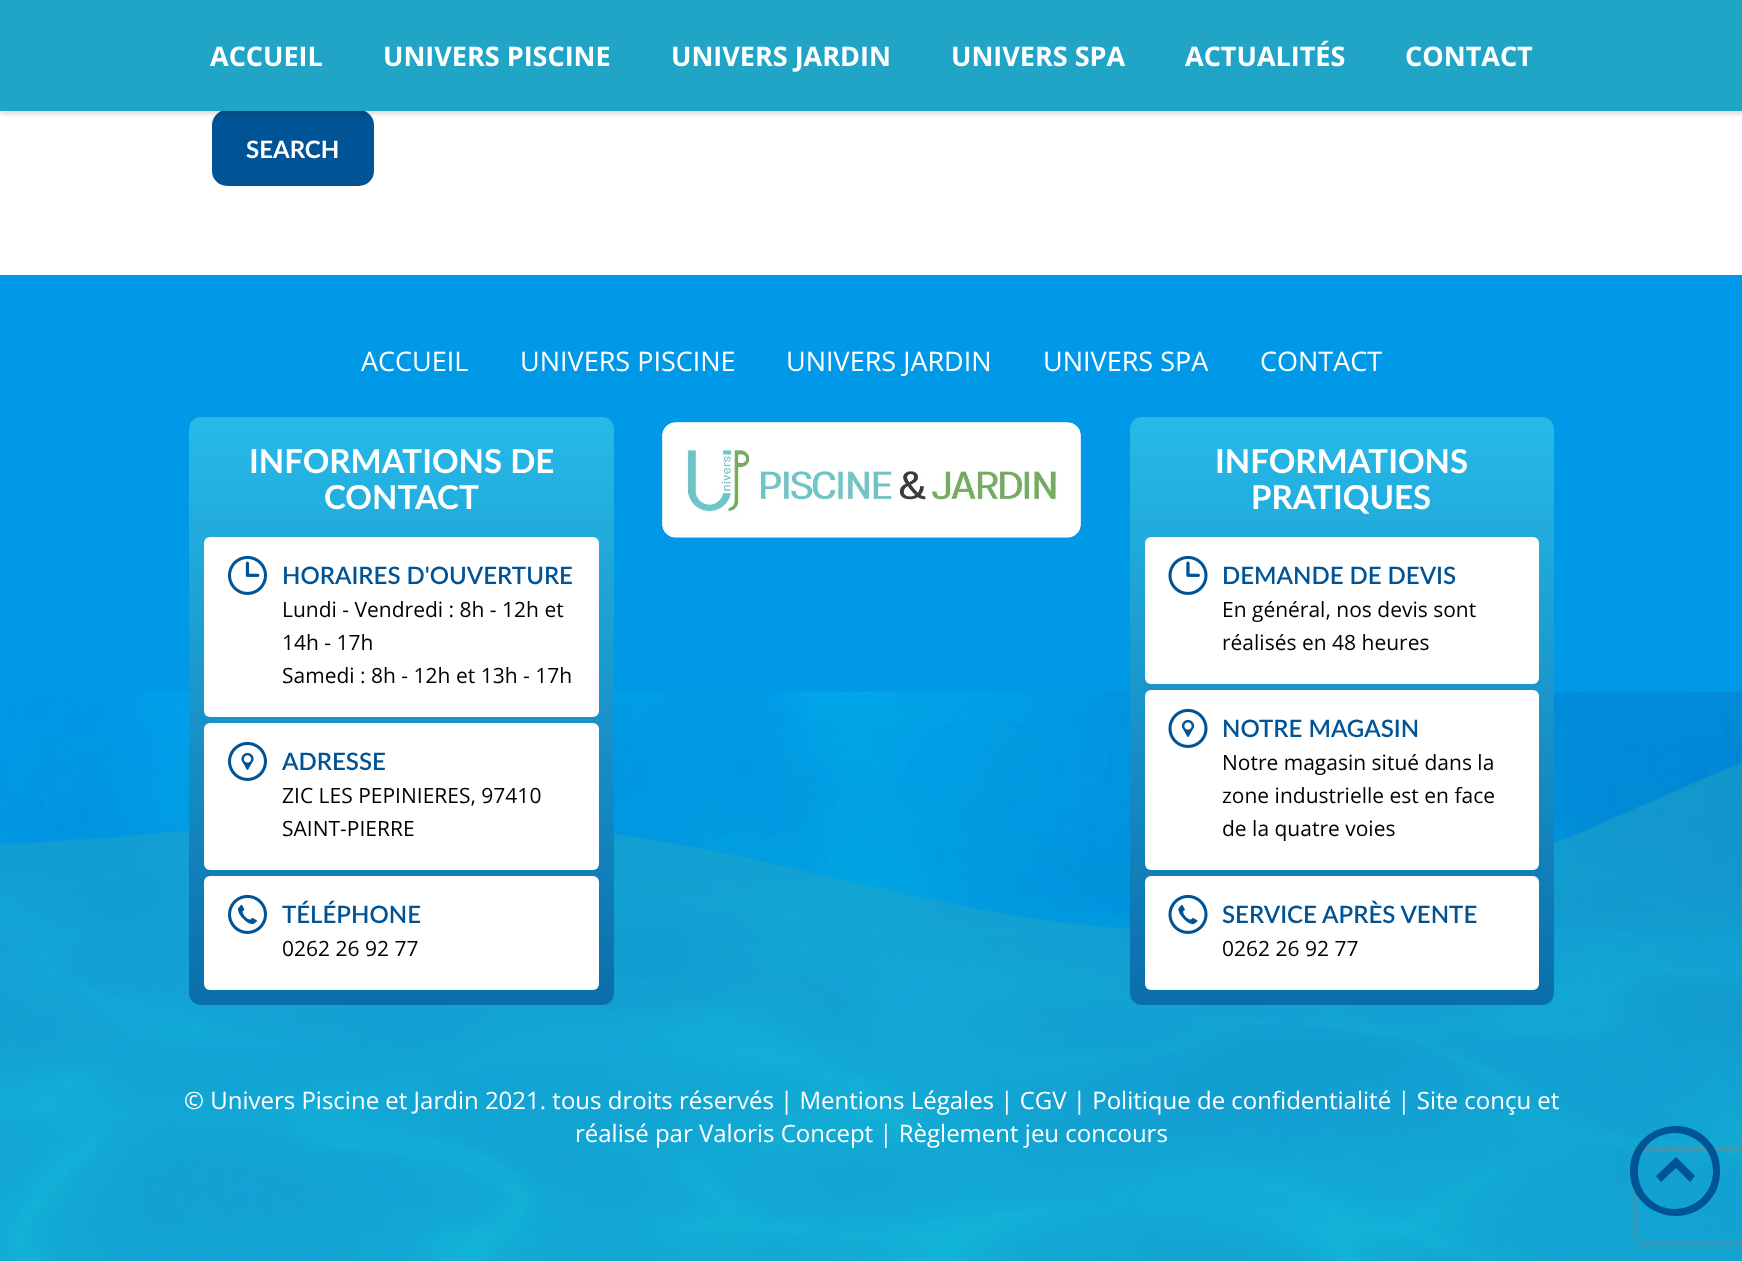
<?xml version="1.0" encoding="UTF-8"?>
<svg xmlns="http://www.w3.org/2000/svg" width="1742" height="1261">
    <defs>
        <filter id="blur1" x="-50%" y="-200%" width="200%" height="500%"><feGaussianBlur stdDeviation="2"/></filter>
        <linearGradient id="g1" gradientUnits="userSpaceOnUse" x1="401" y1="417" x2="401" y2="1005"><stop offset="0" stop-color="#27BAE9"/><stop offset="1" stop-color="#0A6EAB"/></linearGradient>
        <linearGradient id="g2" gradientUnits="userSpaceOnUse" x1="1342" y1="417" x2="1342" y2="1005"><stop offset="0" stop-color="#27BAE9"/><stop offset="1" stop-color="#0A6EAB"/></linearGradient>
        <clipPath id="clip1"><path d="M 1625 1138 H 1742 V 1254 H 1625 Z M 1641 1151 H 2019 C 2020.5 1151 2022 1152.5 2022 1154 V 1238 C 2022 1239.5 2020.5 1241 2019 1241 H 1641 C 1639.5 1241 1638 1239.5 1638 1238 V 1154 C 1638 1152.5 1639.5 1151 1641 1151 Z" clip-rule="evenodd"/></clipPath>
        <filter id="blur2" x="-50%" y="-200%" width="200%" height="500%"><feGaussianBlur stdDeviation="4"/></filter>
    </defs>
    <rect width="100%" height="100%" fill="#FFFFFF"/>
    <rect x="213" y="111" width="160" height="74" rx="14" fill="#005395" stroke="#005395" stroke-width="2"/>
    <rect x="0" y="3" width="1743" height="111" fill="#000000" fill-opacity="0.15" filter="url(#blur1)"/>
    <rect x="0" y="0" width="1742" height="111" fill="#21A5C6"/>
    <text x="210" y="66" font-family="Open Sans" font-size="27" font-weight="700" fill="#FFFFFF">ACCUEIL</text>
    <text x="383" y="66" font-family="Open Sans" font-size="27" font-weight="700" fill="#FFFFFF">UNIVERS PISCINE</text>
    <text x="671" y="66" font-family="Open Sans" font-size="27" font-weight="700" fill="#FFFFFF">UNIVERS JARDIN</text>
    <text x="951" y="66" font-family="Open Sans" font-size="27" font-weight="700" fill="#FFFFFF">UNIVERS SPA</text>
    <text x="1185" y="66" font-family="Open Sans" font-size="27" font-weight="700" fill="#FFFFFF">ACTUALITÉS</text>
    <text x="1405" y="66" font-family="Open Sans" font-size="27" font-weight="700" fill="#FFFFFF">CONTACT</text>
    <text x="246" y="158" font-family="Lato" font-size="24" font-weight="700" fill="#FFFFFF">SEARCH</text>
    <rect x="0" y="275" width="1742" height="417" fill="#0099E7"/>
    <image x="0" y="691" width="1742" height="570" href="img_01.png"/>
    <text x="361" y="371" font-family="Open Sans" font-size="27" fill="#FFFFFF">ACCUEIL</text>
    <text x="520" y="371" font-family="Open Sans" font-size="27" fill="#FFFFFF">UNIVERS PISCINE</text>
    <text x="786" y="371" font-family="Open Sans" font-size="27" fill="#FFFFFF">UNIVERS JARDIN</text>
    <text x="1043" y="371" font-family="Open Sans" font-size="27" fill="#FFFFFF">UNIVERS SPA</text>
    <text x="1260" y="371" font-family="Open Sans" font-size="27" fill="#FFFFFF">CONTACT</text>
    <image x="0" y="762" width="1742" height="499" href="img_09.png"/>
    <rect x="189" y="417" width="425" height="588" rx="12" fill="url(#g1)"/>
    <text x="249" y="473" font-family="Lato" font-size="33" font-weight="700" fill="#FFFFFF">INFORMATIONS DE</text>
    <text x="324" y="509" font-family="Lato" font-size="33" font-weight="700" fill="#FFFFFF">CONTACT</text>
    <rect x="204" y="537" width="395" height="180" rx="6" fill="#FFFFFF"/>
    <image x="228" y="555" width="39" height="40" href="img_02.png"/>
    <text x="282" y="584" font-family="Lato" font-size="24" font-weight="600" fill="#005395">HORAIRES D'OUVERTURE</text>
    <text font-family="Open Sans" font-size="21" fill="#000000">
        <tspan x="282" y="617">Lundi - Vendredi : 8h - 12h et</tspan>
        <tspan x="282" y="650">14h - 17h</tspan>
        <tspan x="282" y="683">Samedi : 8h - 12h et 13h - 17h</tspan>
    </text>
    <rect x="204" y="723" width="395" height="147" rx="6" fill="#FFFFFF"/>
    <image x="228" y="741" width="39" height="40" href="img_03.png"/>
    <text x="282" y="770" font-family="Lato" font-size="24" font-weight="600" fill="#005395">ADRESSE</text>
    <text font-family="Open Sans" font-size="21" fill="#000000">
        <tspan x="282" y="803">ZIC LES PEPINIERES, 97410</tspan>
        <tspan x="282" y="836">SAINT-PIERRE</tspan>
    </text>
    <rect x="204" y="876" width="395" height="114" rx="6" fill="#FFFFFF"/>
    <image x="228" y="894" width="39" height="40" href="img_04.png"/>
    <text x="282" y="923" font-family="Lato" font-size="24" font-weight="600" fill="#005395">TÉLÉPHONE</text>
    <text x="282" y="956" font-family="Open Sans" font-size="21" fill="#000000">0262 26 92 77</text>
    <image x="662" y="422" width="419" height="116" href="img_05.png"/>
    <rect x="1130" y="417" width="424" height="588" rx="12" fill="url(#g2)"/>
    <text x="1215" y="473" font-family="Lato" font-size="33" font-weight="700" fill="#FFFFFF">INFORMATIONS</text>
    <text x="1251" y="509" font-family="Lato" font-size="33" font-weight="700" fill="#FFFFFF">PRATIQUES</text>
    <rect x="1145" y="537" width="394" height="147" rx="6" fill="#FFFFFF"/>
    <image x="1168" y="555" width="40" height="40" href="img_06.png"/>
    <text x="1222" y="584" font-family="Lato" font-size="24" font-weight="600" fill="#005395">DEMANDE DE DEVIS</text>
    <text font-family="Open Sans" font-size="21" fill="#000000">
        <tspan x="1222" y="617">En général, nos devis sont</tspan>
        <tspan x="1222" y="650">réalisés en 48 heures</tspan>
    </text>
    <rect x="1145" y="690" width="394" height="180" rx="6" fill="#FFFFFF"/>
    <image x="1168" y="708" width="40" height="40" href="img_07.png"/>
    <text x="1222" y="737" font-family="Lato" font-size="24" font-weight="600" fill="#005395">NOTRE MAGASIN</text>
    <text font-family="Open Sans" font-size="21" fill="#000000">
        <tspan x="1222" y="770">Notre magasin situé dans la</tspan>
        <tspan x="1222" y="803">zone industrielle est en face</tspan>
        <tspan x="1222" y="836">de la quatre voies</tspan>
    </text>
    <rect x="1145" y="876" width="394" height="114" rx="6" fill="#FFFFFF"/>
    <image x="1168" y="894" width="40" height="40" href="img_08.png"/>
    <text x="1222" y="923" font-family="Lato" font-size="24" font-weight="600" fill="#005395">SERVICE APRÈS VENTE</text>
    <text x="1222" y="956" font-family="Open Sans" font-size="21" fill="#000000">0262 26 92 77</text>
    <text x="184" y="1109" font-family="Open Sans" font-size="24" fill="#FFFFFF">© Univers Piscine et Jardin 2021. tous droits réservés | Mentions Légales | CGV | Politique de confidentialité | Site conçu et</text>
    <text x="575" y="1142" font-family="Open Sans" font-size="24" fill="#FFFFFF">réalisé par Valoris Concept | Règlement jeu concours</text>
    <g clip-path="url(#clip1)">
        <rect x="1638" y="1151" width="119" height="90" rx="3" fill="#808080" filter="url(#blur2)"/>
    </g>
    <path d="M 1720 1171 C 1720 1162 1718 1153 1713 1146 C 1688 1109 1630 1127 1630 1171 C 1630 1215 1688 1233 1713 1196 C 1718 1189 1720 1180 1720 1171 Z M 1638 1171 C 1638 1163 1640 1155 1645 1148 C 1667 1119 1713 1135 1713 1171 C 1713 1207 1667 1223 1645 1194 C 1640 1187 1638 1179 1638 1171 Z M 1695 1176 L 1676 1157 L 1656 1176 L 1661 1182 L 1676 1168 L 1690 1182 Z" fill="#005395"/>
</svg>
